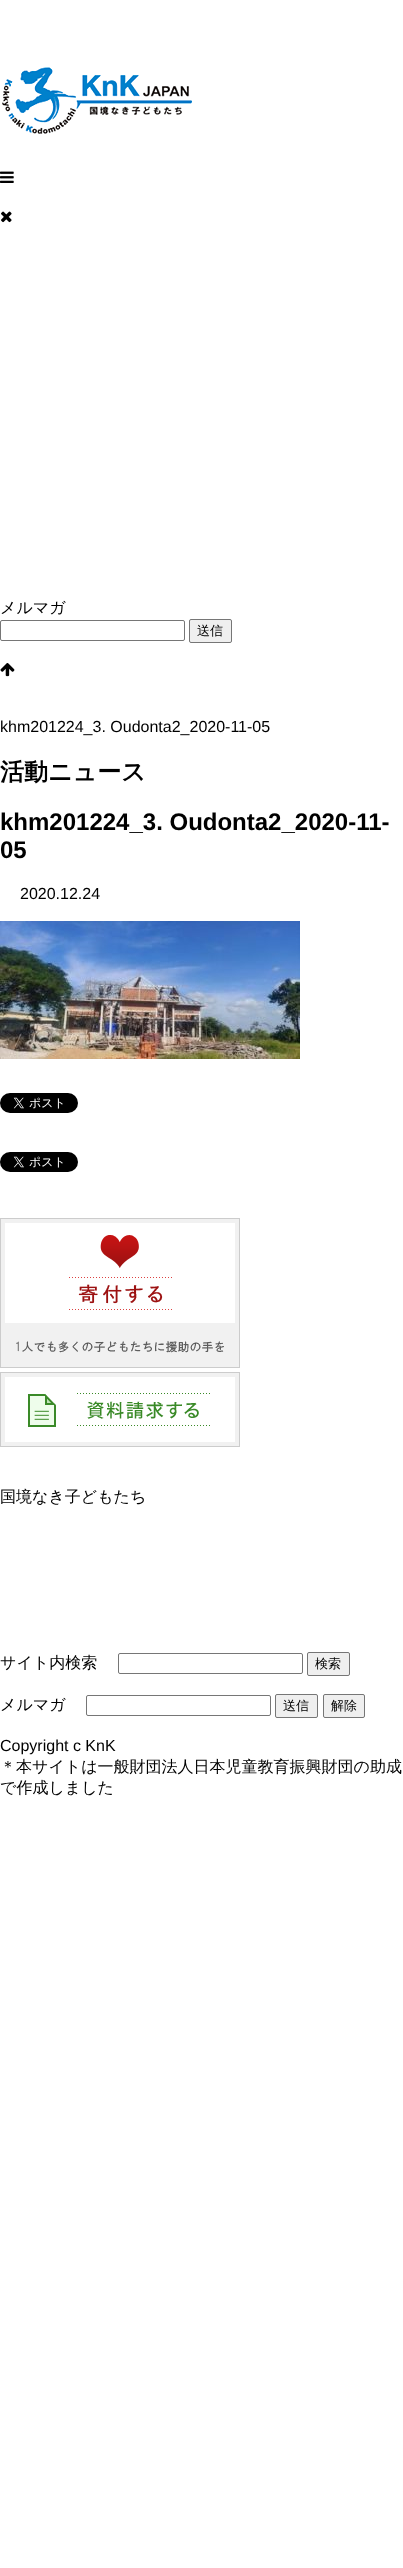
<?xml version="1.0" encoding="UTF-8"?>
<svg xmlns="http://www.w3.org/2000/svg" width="403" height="2568">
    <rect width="100%" height="100%" fill="#FFFFFF"/>
    <image x="2" y="67" width="190" height="67" href="img_01.png"/>
    <image x="0" y="171" width="14" height="12" href="img_02.png"/>
    <image x="1" y="211" width="11" height="12" href="img_03.png"/>
    <text x="0" y="613" font-family="WenQuanYi Zen Hei" font-size="16" font-weight="500" fill="#000000">メルマガ</text>
    <rect x="0.5" y="620.5" width="184" height="20" rx="1.5" fill="none" stroke="#767676"/>
    <rect x="189.5" y="619.5" width="42" height="23" rx="1.5" fill="#EFEFEF" stroke="#767676"/>
    <text x="197" y="635" font-family="WenQuanYi Zen Hei" font-size="13" font-weight="500" fill="#000000">送信</text>
    <image x="0" y="663" width="15" height="14" href="img_04.png"/>
    <text x="0" y="732" font-family="Liberation Sans" font-size="16" fill="#000000">khm201224_3. Oudonta2_2020-11-05</text>
    <text x="0" y="780" font-family="WenQuanYi Zen Hei" font-size="24" font-weight="700" fill="#000000">活動ニュース</text>
    <text font-family="Liberation Sans" font-size="24" font-weight="700" fill="#000000">
        <tspan x="0" y="830">khm201224_3. Oudonta2_2020-11-</tspan>
        <tspan x="0" y="858">05</tspan>
    </text>
    <text x="20" y="899" font-family="Liberation Sans" font-size="16" fill="#000000">2020.12.24</text>
    <image x="0" y="921" width="300" height="138" href="img_05.png"/>
    <image x="0" y="1093" width="78" height="20" href="img_06.png"/>
    <image x="0" y="1152" width="78" height="20" href="img_06.png"/>
    <image x="0" y="1218" width="240" height="150" href="img_07.png"/>
    <image x="0" y="1372" width="240" height="75" href="img_08.png"/>
    <text x="0" y="1502" font-family="WenQuanYi Zen Hei" font-size="16" font-weight="500" fill="#000000">国境なき子どもたち</text>
    <text x="0" y="1668" font-family="WenQuanYi Zen Hei" font-size="16" font-weight="500" fill="#000000">サイト内検索</text>
    <rect x="118.5" y="1653.5" width="184" height="20" rx="1.5" fill="none" stroke="#767676"/>
    <rect x="307.5" y="1652.5" width="42" height="23" rx="1.5" fill="#EFEFEF" stroke="#767676"/>
    <text x="315" y="1668" font-family="WenQuanYi Zen Hei" font-size="13" font-weight="500" fill="#000000">検索</text>
    <text x="0" y="1710" font-family="WenQuanYi Zen Hei" font-size="16" font-weight="500" fill="#000000">メルマガ</text>
    <rect x="86.5" y="1695.5" width="184" height="20" rx="1.5" fill="none" stroke="#767676"/>
    <rect x="275.5" y="1694.5" width="42" height="23" rx="1.5" fill="#EFEFEF" stroke="#767676"/>
    <text x="283" y="1710" font-family="WenQuanYi Zen Hei" font-size="13" font-weight="500" fill="#000000">送信</text>
    <rect x="323.5" y="1694.5" width="41" height="23" rx="1.5" fill="#EFEFEF" stroke="#767676"/>
    <text x="331" y="1710" font-family="WenQuanYi Zen Hei" font-size="13" font-weight="500" fill="#000000">解除</text>
    <text x="0" y="1751" font-family="Liberation Sans" font-size="16" fill="#000000">Copyright c KnK</text>
    <text font-family="WenQuanYi Zen Hei" font-size="16" font-weight="500" fill="#000000">
        <tspan x="0" y="1772">＊本サイトは一般財団法人日本児童教育振興財団の助成</tspan>
        <tspan x="0" y="1793">で作成しました</tspan>
    </text>
</svg>
